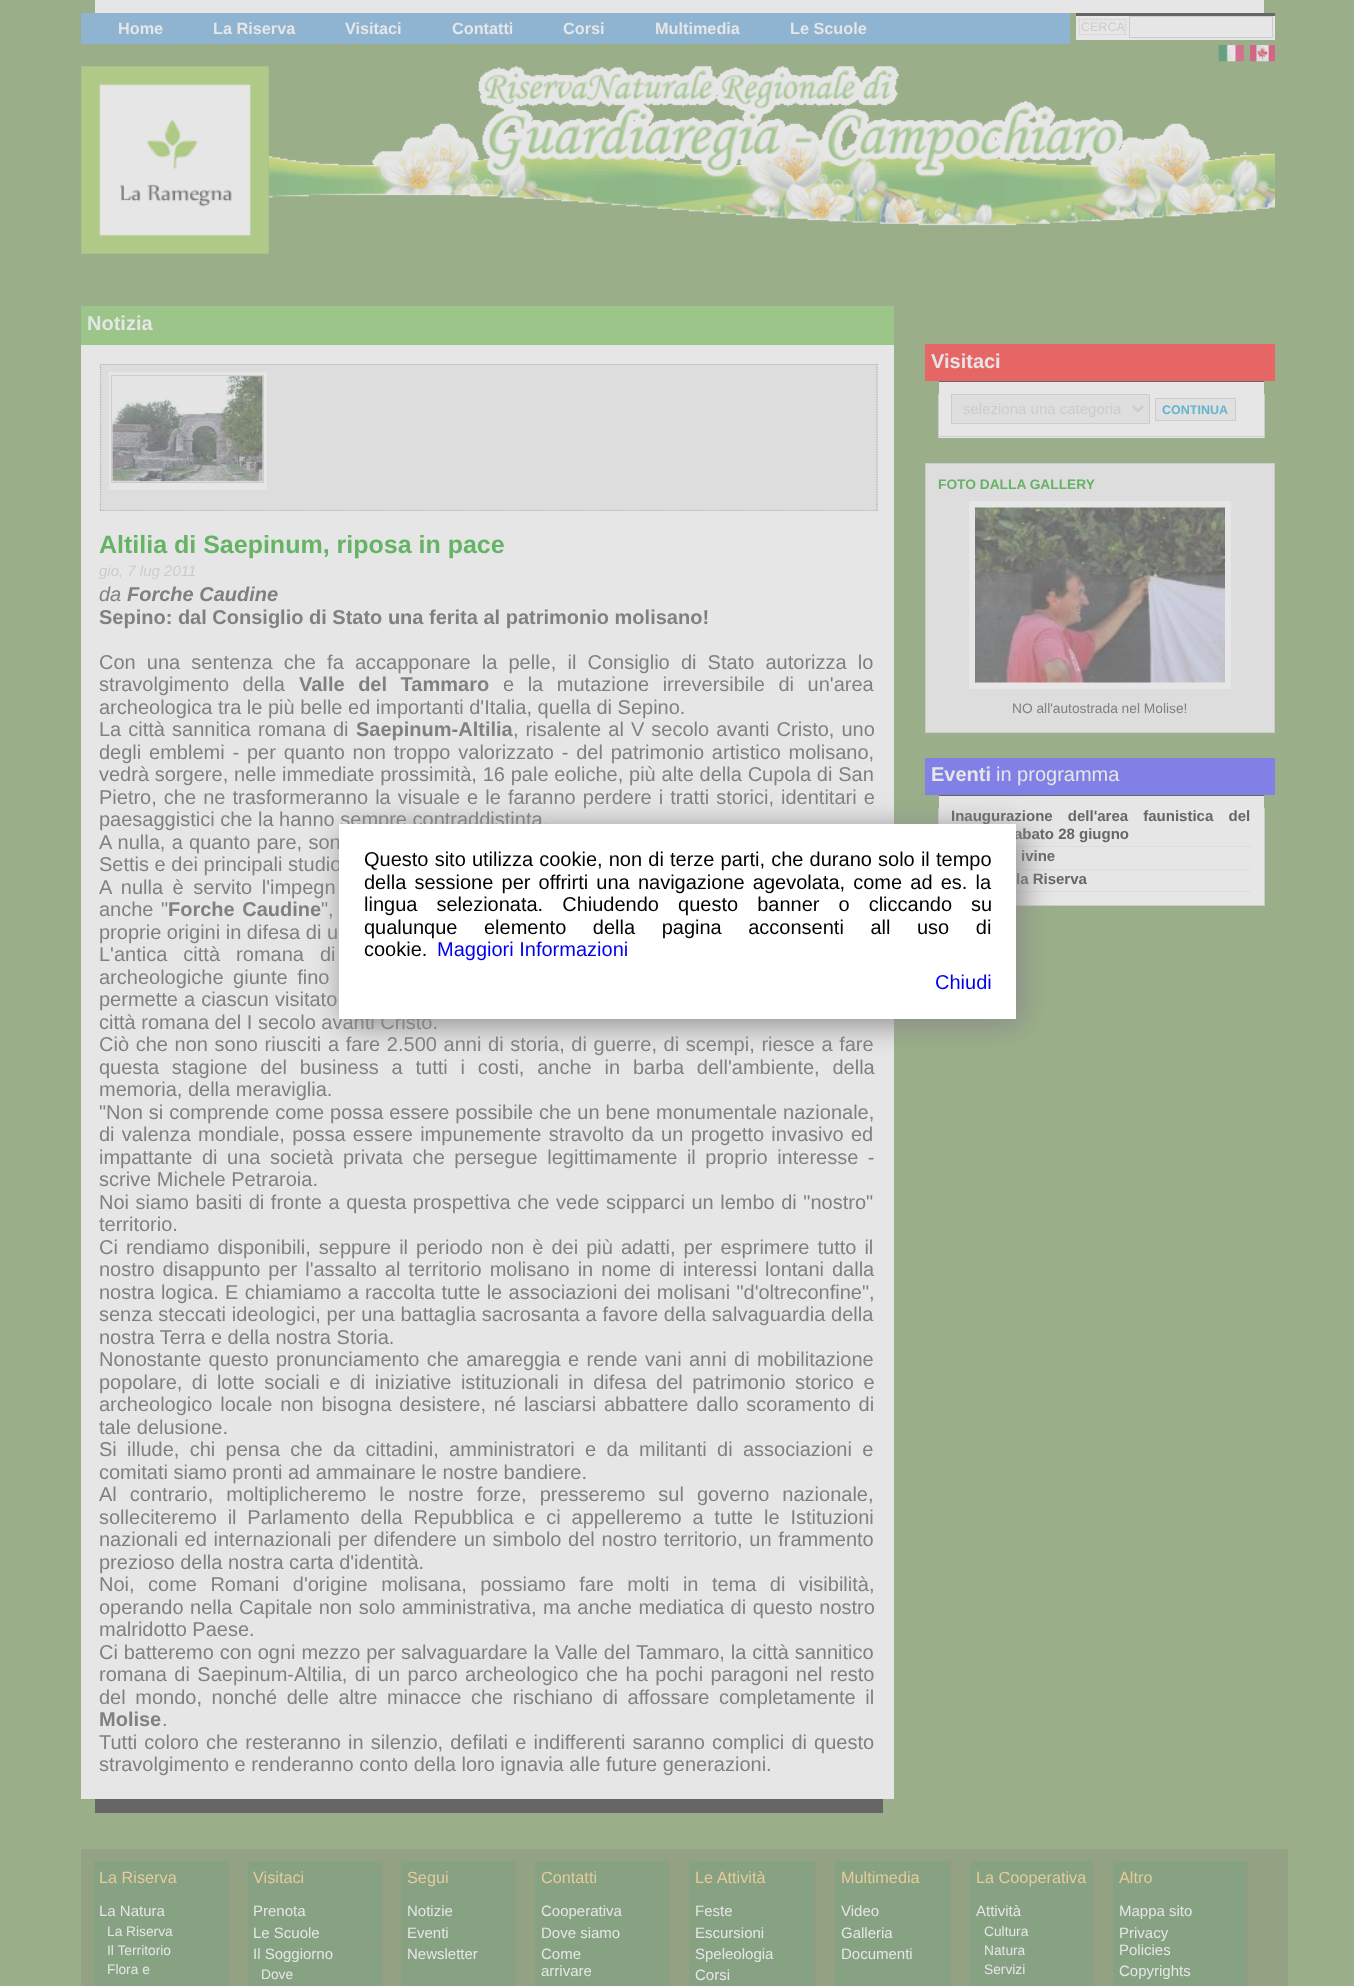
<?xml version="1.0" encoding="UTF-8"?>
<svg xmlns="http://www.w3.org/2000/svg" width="1354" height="1986">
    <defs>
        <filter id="blur1" x="-50%" y="-200%" width="200%" height="500%"><feGaussianBlur stdDeviation="15.5"/></filter>
    </defs>
    <rect width="100%" height="100%" fill="#9AAF89"/>
    <rect x="95" y="0" width="1169" height="13" fill="#E6E6E6"/>
    <rect x="81" y="13" width="989" height="31" fill="#8EB4D1"/>
    <text x="118" y="34" font-family="Liberation Sans" font-size="16.25" font-weight="700" fill="#E6E6E6">Home</text>
    <text x="213" y="34" font-family="Liberation Sans" font-size="16.25" font-weight="700" fill="#E6E6E6">La Riserva</text>
    <text x="345" y="34" font-family="Liberation Sans" font-size="16.25" font-weight="700" fill="#E6E6E6">Visitaci</text>
    <text x="452" y="34" font-family="Liberation Sans" font-size="16.25" font-weight="700" fill="#E6E6E6">Contatti</text>
    <text x="563" y="34" font-family="Liberation Sans" font-size="16.25" font-weight="700" fill="#E6E6E6">Corsi</text>
    <text x="655" y="34" font-family="Liberation Sans" font-size="16.25" font-weight="700" fill="#E6E6E6">Multimedia</text>
    <text x="790" y="34" font-family="Liberation Sans" font-size="16.25" font-weight="700" fill="#E6E6E6">Le Scuole</text>
    <rect x="1076" y="16" width="199" height="24" fill="#E6E6E6"/>
    <rect x="1076" y="13" width="199" height="3" fill="#666666"/>
    <path d="M 1079 19.5 H 1126 M 1125.5 19 V 35 M 1079 34.5 H 1126 M 1079.5 19 V 35" fill="none" stroke="#CCCCCC" stroke-width="1.2" stroke-dasharray="1.25 1.25"/>
    <text x="1081" y="31" font-family="Liberation Sans" font-size="12.5" fill="#CCCCCC">CERCA</text>
    <rect x="1129.5" y="16.5" width="143" height="21" fill="none" stroke="#CCCCCC"/>
    <image x="1218" y="45" width="26" height="17" href="img_01.png"/>
    <image x="1250" y="45" width="25" height="17" href="img_02.png"/>
    <image x="81" y="66" width="188" height="188" href="img_03.png"/>
    <image x="268" y="66" width="1007" height="160" href="img_04.png"/>
    <rect x="81" y="306" width="813" height="39" fill="#9BC589"/>
    <text x="87" y="330" font-family="Liberation Sans" font-size="20" font-weight="700" fill="#E6E6E6">Notizia</text>
    <rect x="81" y="345" width="813" height="1454" fill="#E6E6E6"/>
    <rect x="100" y="364" width="778" height="147" fill="#DDDDDD"/>
    <path d="M 100 364.5 H 877.5" fill="none" stroke="#B3B3B3" stroke-width="1.2" stroke-dasharray="1.25 1.25"/>
    <path d="M 877 364 V 511" fill="none" stroke="#B3B3B3" stroke-width="1.2" stroke-dasharray="1.25 1.25"/>
    <path d="M 100 510.5 H 877.5" fill="none" stroke="#B3B3B3" stroke-width="1.2" stroke-dasharray="1.25 1.25"/>
    <path d="M 100.5 364 V 511" fill="none" stroke="#B3B3B3" stroke-width="1.2" stroke-dasharray="1.25 1.25"/>
    <rect x="109" y="372" width="158" height="118" fill="#E6E6E6"/>
    <rect x="111.5" y="375.5" width="152" height="107" fill="none" stroke="#CCCCCC"/>
    <image x="112" y="376" width="151" height="106" href="img_05.png"/>
    <text x="99" y="553" font-family="Liberation Sans" font-size="25" font-weight="700" fill="#66B366">Altilia di Saepinum, riposa in pace</text>
    <text x="99" y="576" font-family="Liberation Sans" font-size="15" font-style="italic" fill="#CCCCCC">gio, 7 lug 2011</text>
    <text x="99" y="601" font-family="Liberation Sans" font-size="20" font-style="italic" fill="#808080">da</text>
    <text x="127" y="601" font-family="Liberation Sans" font-size="20" font-weight="700" font-style="italic" fill="#808080">Forche Caudine</text>
    <text x="99" y="624" font-family="Liberation Sans" font-size="20" font-weight="700" fill="#808080">Sepino: dal Consiglio di Stato una ferita al patrimonio molisano!</text>
    <text font-family="Liberation Sans" font-size="20" fill="#808080">
        <tspan x="99" y="669" word-spacing="5.6">Con una sentenza che fa accapponare la pelle, il Consiglio di Stato autorizza lo</tspan>
        <tspan x="99" y="691" word-spacing="8">stravolgimento della</tspan>
    </text>
    <text x="299" y="691" word-spacing="8" font-family="Liberation Sans" font-size="20" font-weight="700" fill="#808080">Valle del Tammaro</text>
    <text x="503" y="691" word-spacing="8" font-family="Liberation Sans" font-size="20" fill="#808080">e la mutazione irreversibile di un'area</text>
    <text font-family="Liberation Sans" font-size="20" fill="#808080">
        <tspan x="99" y="714">archeologica tra le più belle ed importanti d'Italia, quella di Sepino.</tspan>
        <tspan x="99" y="736" word-spacing="1.5">La città sannitica romana di</tspan>
    </text>
    <text x="356" y="736" font-family="Liberation Sans" font-size="20" font-weight="700" fill="#808080">Saepinum-Altilia</text>
    <text x="513" y="736" word-spacing="1.5" font-family="Liberation Sans" font-size="20" fill="#808080">, risalente al V secolo avanti Cristo, uno</text>
    <text font-family="Liberation Sans" font-size="20" fill="#808080">
        <tspan x="99" y="759" word-spacing="2.25">degli emblemi - per quanto non troppo valorizzato - del patrimonio artistico molisano,</tspan>
        <tspan x="99" y="781" word-spacing="0.25">vedrà sorgere, nelle immediate prossimità, 16 pale eoliche, più alte della Cupola di San</tspan>
        <tspan x="99" y="804" word-spacing="1.5">Pietro, che ne trasformeranno la visuale e le faranno perdere i tratti storici, identitari e</tspan>
        <tspan x="99" y="826">paesaggistici che la hanno sempre contraddistinta.</tspan>
        <tspan x="99" y="849" word-spacing="0.75">A nulla, a quanto pare, son</tspan>
        <tspan x="99" y="871">Settis e dei principali studio</tspan>
        <tspan x="99" y="894" word-spacing="4">A nulla è servito l'impegn</tspan>
        <tspan x="99" y="916" word-spacing="2">anche "</tspan>
    </text>
    <text x="168" y="916" word-spacing="2" font-family="Liberation Sans" font-size="20" font-weight="700" fill="#808080">Forche Caudine</text>
    <text x="321" y="916" word-spacing="2" font-family="Liberation Sans" font-size="20" fill="#808080">",</text>
    <text font-family="Liberation Sans" font-size="20" fill="#808080">
        <tspan x="99" y="939">proprie origini in difesa di u</tspan>
        <tspan x="99" y="961" word-spacing="10.5">L'antica città romana di</tspan>
        <tspan x="99" y="984" word-spacing="4">archeologiche giunte fino</tspan>
        <tspan x="99" y="1006" word-spacing="0.5">permette a ciascun visitato</tspan>
        <tspan x="99" y="1029">città romana del I secolo avanti Cristo.</tspan>
        <tspan x="99" y="1051" word-spacing="1.1">Ciò che non sono riusciti a fare 2.500 anni di storia, di guerre, di scempi, riesce a fare</tspan>
        <tspan x="99" y="1074" word-spacing="7.25">questa stagione del business a tutti i costi, anche in barba dell'ambiente, della</tspan>
        <tspan x="99" y="1096">memoria, della meraviglia.</tspan>
        <tspan x="99" y="1119" word-spacing="0.4">"Non si comprende come possa essere possibile che un bene monumentale nazionale,</tspan>
        <tspan x="99" y="1141" word-spacing="1.75">di valenza mondiale, possa essere impunemente stravolto da un progetto invasivo ed</tspan>
        <tspan x="99" y="1164" word-spacing="4">impattante di una società privata che persegue legittimamente il proprio interesse -</tspan>
        <tspan x="99" y="1186">scrive Michele Petraroia.</tspan>
        <tspan x="99" y="1209" word-spacing="1">Noi siamo basiti di fronte a questa prospettiva che vede scipparci un lembo di "nostro"</tspan>
        <tspan x="99" y="1231">territorio.</tspan>
        <tspan x="99" y="1254" word-spacing="2.5">Ci rendiamo disponibili, seppure il periodo non è dei più adatti, per esprimere tutto il</tspan>
        <tspan x="99" y="1276" word-spacing="2.4">nostro disappunto per l'assalto al territorio molisano in nome di interessi lontani dalla</tspan>
        <tspan x="99" y="1299" word-spacing="0.75">nostra logica. E chiamiamo a raccolta tutte le associazioni dei molisani "d'oltreconfine",</tspan>
        <tspan x="99" y="1321" word-spacing="0.25">senza steccati ideologici, per una battaglia sacrosanta a favore della salvaguardia della</tspan>
        <tspan x="99" y="1344">nostra Terra e della nostra Storia.</tspan>
        <tspan x="99" y="1366" word-spacing="1.75">Nonostante questo pronunciamento che amareggia e rende vani anni di mobilitazione</tspan>
        <tspan x="99" y="1389" word-spacing="3.9">popolare, di lotte sociali e di iniziative istituzionali in difesa del patrimonio storico e</tspan>
        <tspan x="99" y="1411" word-spacing="2.25">archeologico locale non bisogna desistere, né lasciarsi abbattere dallo scoramento di</tspan>
        <tspan x="99" y="1434">tale delusione.</tspan>
        <tspan x="99" y="1456" word-spacing="4.75">Si illude, chi pensa che da cittadini, amministratori e da militanti di associazioni e</tspan>
        <tspan x="99" y="1479">comitati siamo pronti ad ammainare le nostre bandiere.</tspan>
        <tspan x="99" y="1501" word-spacing="7.5">Al contrario, moltiplicheremo le nostre forze, presseremo sul governo nazionale,</tspan>
        <tspan x="99" y="1524" word-spacing="5.25">solleciteremo il Parlamento della Repubblica e ci appelleremo a tutte le Istituzioni</tspan>
        <tspan x="99" y="1546" word-spacing="1.1">nazionali ed internazionali per difendere un simbolo del nostro territorio, un frammento</tspan>
        <tspan x="99" y="1569">prezioso della nostra carta d'identità.</tspan>
        <tspan x="99" y="1591" word-spacing="7.9">Noi, come Romani d'origine molisana, possiamo fare molti in tema di visibilità,</tspan>
        <tspan x="99" y="1614" word-spacing="1">operando nella Capitale non solo amministrativa, ma anche mediatica di questo nostro</tspan>
        <tspan x="99" y="1636">malridotto Paese.</tspan>
        <tspan x="99" y="1659" word-spacing="0.3">Ci batteremo con ogni mezzo per salvaguardare la Valle del Tammaro, la città sannitico</tspan>
        <tspan x="99" y="1681" word-spacing="1.9">romana di Saepinum-Altilia, di un parco archeologico che ha pochi paragoni nel resto</tspan>
        <tspan x="99" y="1704" word-spacing="4">del mondo, nonché delle altre minacce che rischiano di affossare completamente il</tspan>
    </text>
    <text x="99" y="1726" font-family="Liberation Sans" font-size="20" font-weight="700" fill="#808080">Molise</text>
    <text x="162" y="1726" font-family="Liberation Sans" font-size="20" fill="#808080">.</text>
    <text font-family="Liberation Sans" font-size="20" fill="#808080">
        <tspan x="99" y="1749" word-spacing="1.6">Tutti coloro che resteranno in silenzio, defilati e indifferenti saranno complici di questo</tspan>
        <tspan x="99" y="1771">stravolgimento e renderanno conto della loro ignavia alle future generazioni.</tspan>
    </text>
    <rect x="95" y="1799" width="788" height="14" fill="#666666"/>
    <rect x="925" y="344" width="350" height="37" fill="#E66666"/>
    <text x="931" y="368" font-family="Liberation Sans" font-size="20" font-weight="700" fill="#E6E6E6">Visitaci</text>
    <rect x="939" y="382" width="325" height="56" fill="#E6E6E6"/>
    <rect x="939" y="381" width="325" height="1" fill="#666666"/>
    <rect x="1264" y="394" width="1" height="44" fill="#CCCCCC"/>
    <rect x="938" y="436" width="327" height="1" fill="#CCCCCC"/>
    <rect x="938" y="394" width="1" height="44" fill="#CCCCCC"/>
    <rect x="951.5" y="394.5" width="198" height="29" fill="#DEDEDE" stroke="#CCCCCC"/>
    <path d="M 1133 406 L 1138 411 L 1143 406" fill="none" stroke="#CCCCCC" stroke-width="2.5"/>
    <text x="963" y="414" font-family="Liberation Sans" font-size="15" fill="#CCCCCC">seleziona una categoria</text>
    <rect x="1155.5" y="398.5" width="80" height="22" fill="#E0E0E0" stroke="#CCCCCC"/>
    <text x="1162" y="414" font-family="Liberation Sans" font-size="12.5" font-weight="700" fill="#66B3CC">CONTINUA</text>
    <rect x="925.5" y="463.5" width="349" height="269" fill="#DDDDDD" stroke="#CCCCCC"/>
    <text x="938" y="489" font-family="Liberation Sans" font-size="13.75" font-weight="700" fill="#66B366">FOTO DALLA GALLERY</text>
    <rect x="969" y="501" width="262" height="188" fill="#E6E6E6"/>
    <image x="975" y="507" width="250" height="176" href="img_06.png"/>
    <text x="1012" y="713" font-family="Liberation Sans" font-size="13.75" fill="#808080">NO all'autostrada nel Molise!</text>
    <rect x="925" y="758" width="350" height="37" fill="#8080E6"/>
    <text x="931" y="781" font-family="Liberation Sans" font-size="20" font-weight="700" fill="#E6E6E6">Eventi</text>
    <text x="996" y="781" font-family="Liberation Sans" font-size="20" fill="#E6E6E6">in programma</text>
    <rect x="939" y="796" width="325" height="109" fill="#E6E6E6"/>
    <rect x="939" y="795" width="325" height="1" fill="#666666"/>
    <rect x="1264" y="808" width="1" height="98" fill="#CCCCCC"/>
    <rect x="1016" y="905" width="249" height="1" fill="#CCCCCC"/>
    <rect x="938" y="808" width="1" height="16" fill="#CCCCCC"/>
    <text x="951" y="821" word-spacing="11" font-family="Liberation Sans" font-size="15" font-weight="700" fill="#666666">Inaugurazione dell'area faunistica del</text>
    <text x="1014" y="839" font-family="Liberation Sans" font-size="15" font-weight="700" fill="#666666">abato 28 giugno</text>
    <rect x="1016" y="846" width="235" height="1" fill="#DDDDDD"/>
    <text x="1021" y="861" font-family="Liberation Sans" font-size="15" font-weight="700" fill="#666666">ivine</text>
    <rect x="1016" y="869" width="235" height="1" fill="#DDDDDD"/>
    <text x="1016" y="884" font-family="Liberation Sans" font-size="15" font-weight="700" fill="#666666">la Riserva</text>
    <rect x="1016" y="891" width="235" height="1" fill="#DDDDDD"/>
    <rect x="81" y="1849" width="1207" height="137" fill="#92A283"/>
    <rect x="94" y="1861" width="135" height="125" fill="#86A283"/>
    <path d="M 228 1861 V 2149" fill="none" stroke="#A99183" stroke-width="1.2" stroke-dasharray="1.25 1.25"/>
    <text x="99" y="1883" font-family="Liberation Sans" font-size="16.25" fill="#E6CC99">La Riserva</text>
    <text x="99" y="1916" font-family="Liberation Sans" font-size="15" fill="#E6E6E6">La Natura</text>
    <text font-family="Liberation Sans" font-size="13.75" fill="#E6E6E6">
        <tspan x="107" y="1936">La Riserva</tspan>
        <tspan x="107" y="1955">Il Territorio</tspan>
        <tspan x="107" y="1974">Flora e</tspan>
    </text>
    <rect x="248" y="1861" width="135" height="125" fill="#86A283"/>
    <path d="M 382 1861 V 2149" fill="none" stroke="#A99183" stroke-width="1.2" stroke-dasharray="1.25 1.25"/>
    <text x="253" y="1883" font-family="Liberation Sans" font-size="16.25" fill="#E6CC99">Visitaci</text>
    <text font-family="Liberation Sans" font-size="15" fill="#E6E6E6">
        <tspan x="253" y="1916">Prenota</tspan>
        <tspan x="253" y="1938">Le Scuole</tspan>
        <tspan x="253" y="1959">Il Soggiorno</tspan>
    </text>
    <text x="261" y="1979" font-family="Liberation Sans" font-size="13.75" fill="#E6E6E6">Dove</text>
    <rect x="401" y="1861" width="115" height="125" fill="#86A283"/>
    <path d="M 515.5 1861 V 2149" fill="none" stroke="#A99183" stroke-width="1.2" stroke-dasharray="1.25 1.25"/>
    <text x="407" y="1883" font-family="Liberation Sans" font-size="16.25" fill="#E6CC99">Segui</text>
    <text font-family="Liberation Sans" font-size="15" fill="#E6E6E6">
        <tspan x="407" y="1916">Notizie</tspan>
        <tspan x="407" y="1938">Eventi</tspan>
        <tspan x="407" y="1959">Newsletter</tspan>
    </text>
    <rect x="535" y="1861" width="135" height="125" fill="#86A283"/>
    <path d="M 669.5 1861 V 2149" fill="none" stroke="#A99183" stroke-width="1.2" stroke-dasharray="1.25 1.25"/>
    <text x="541" y="1883" font-family="Liberation Sans" font-size="16.25" fill="#E6CC99">Contatti</text>
    <text font-family="Liberation Sans" font-size="15" fill="#E6E6E6">
        <tspan x="541" y="1916">Cooperativa</tspan>
        <tspan x="541" y="1938">Dove siamo</tspan>
        <tspan x="541" y="1959">Come</tspan>
        <tspan x="541" y="1976">arrivare</tspan>
    </text>
    <rect x="689" y="1861" width="127" height="125" fill="#86A283"/>
    <path d="M 815.5 1861 V 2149" fill="none" stroke="#A99183" stroke-width="1.2" stroke-dasharray="1.25 1.25"/>
    <text x="695" y="1883" font-family="Liberation Sans" font-size="16.25" fill="#E6CC99">Le Attività</text>
    <text font-family="Liberation Sans" font-size="15" fill="#E6E6E6">
        <tspan x="695" y="1916">Feste</tspan>
        <tspan x="695" y="1938">Escursioni</tspan>
        <tspan x="695" y="1959">Speleologia</tspan>
        <tspan x="695" y="1980">Corsi</tspan>
    </text>
    <rect x="835" y="1861" width="116" height="125" fill="#86A283"/>
    <path d="M 950.5 1861 V 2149" fill="none" stroke="#A99183" stroke-width="1.2" stroke-dasharray="1.25 1.25"/>
    <text x="841" y="1883" font-family="Liberation Sans" font-size="16.25" fill="#E6CC99">Multimedia</text>
    <text font-family="Liberation Sans" font-size="15" fill="#E6E6E6">
        <tspan x="841" y="1916">Video</tspan>
        <tspan x="841" y="1938">Galleria</tspan>
        <tspan x="841" y="1959">Documenti</tspan>
    </text>
    <rect x="970" y="1861" width="124" height="125" fill="#86A283"/>
    <path d="M 1093 1861 V 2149" fill="none" stroke="#A99183" stroke-width="1.2" stroke-dasharray="1.25 1.25"/>
    <text x="976" y="1883" font-family="Liberation Sans" font-size="16.25" fill="#E6CC99">La Cooperativa</text>
    <text x="976" y="1916" font-family="Liberation Sans" font-size="15" fill="#E6E6E6">Attività</text>
    <text font-family="Liberation Sans" font-size="13.75" fill="#E6E6E6">
        <tspan x="984" y="1936">Cultura</tspan>
        <tspan x="984" y="1955">Natura</tspan>
        <tspan x="984" y="1974">Servizi</tspan>
    </text>
    <rect x="1113" y="1861" width="135" height="125" fill="#86A283"/>
    <path d="M 1247 1861 V 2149" fill="none" stroke="#A99183" stroke-width="1.2" stroke-dasharray="1.25 1.25"/>
    <text x="1119" y="1883" font-family="Liberation Sans" font-size="16.25" fill="#E6CC99">Altro</text>
    <text font-family="Liberation Sans" font-size="15" fill="#E6E6E6">
        <tspan x="1119" y="1916">Mappa sito</tspan>
        <tspan x="1119" y="1938">Privacy</tspan>
        <tspan x="1119" y="1955">Policies</tspan>
        <tspan x="1119" y="1976">Copyrights</tspan>
    </text>
    <rect x="344" y="829" width="677" height="195" fill="#888888" filter="url(#blur1)"/>
    <rect x="339" y="824" width="677" height="195" fill="#FFFFFF"/>
    <text font-family="Liberation Sans" font-size="20" fill="#000000">
        <tspan x="364" y="866" word-spacing="0.6">Questo sito utilizza cookie, non di terze parti, che durano solo il tempo</tspan>
        <tspan x="364" y="889" word-spacing="2.6">della sessione per offrirti una navigazione agevolata, come ad es. la</tspan>
        <tspan x="364" y="911" word-spacing="13.5">lingua selezionata. Chiudendo questo banner o cliccando su</tspan>
        <tspan x="364" y="934" word-spacing="21">qualunque elemento della pagina acconsenti all uso di</tspan>
        <tspan x="364" y="956">cookie.</tspan>
    </text>
    <text x="437" y="956" font-family="Liberation Sans" font-size="20" fill="#0000EE">Maggiori Informazioni</text>
    <text x="935" y="989" font-family="Liberation Sans" font-size="20" fill="#0000EE">Chiudi</text>
</svg>
